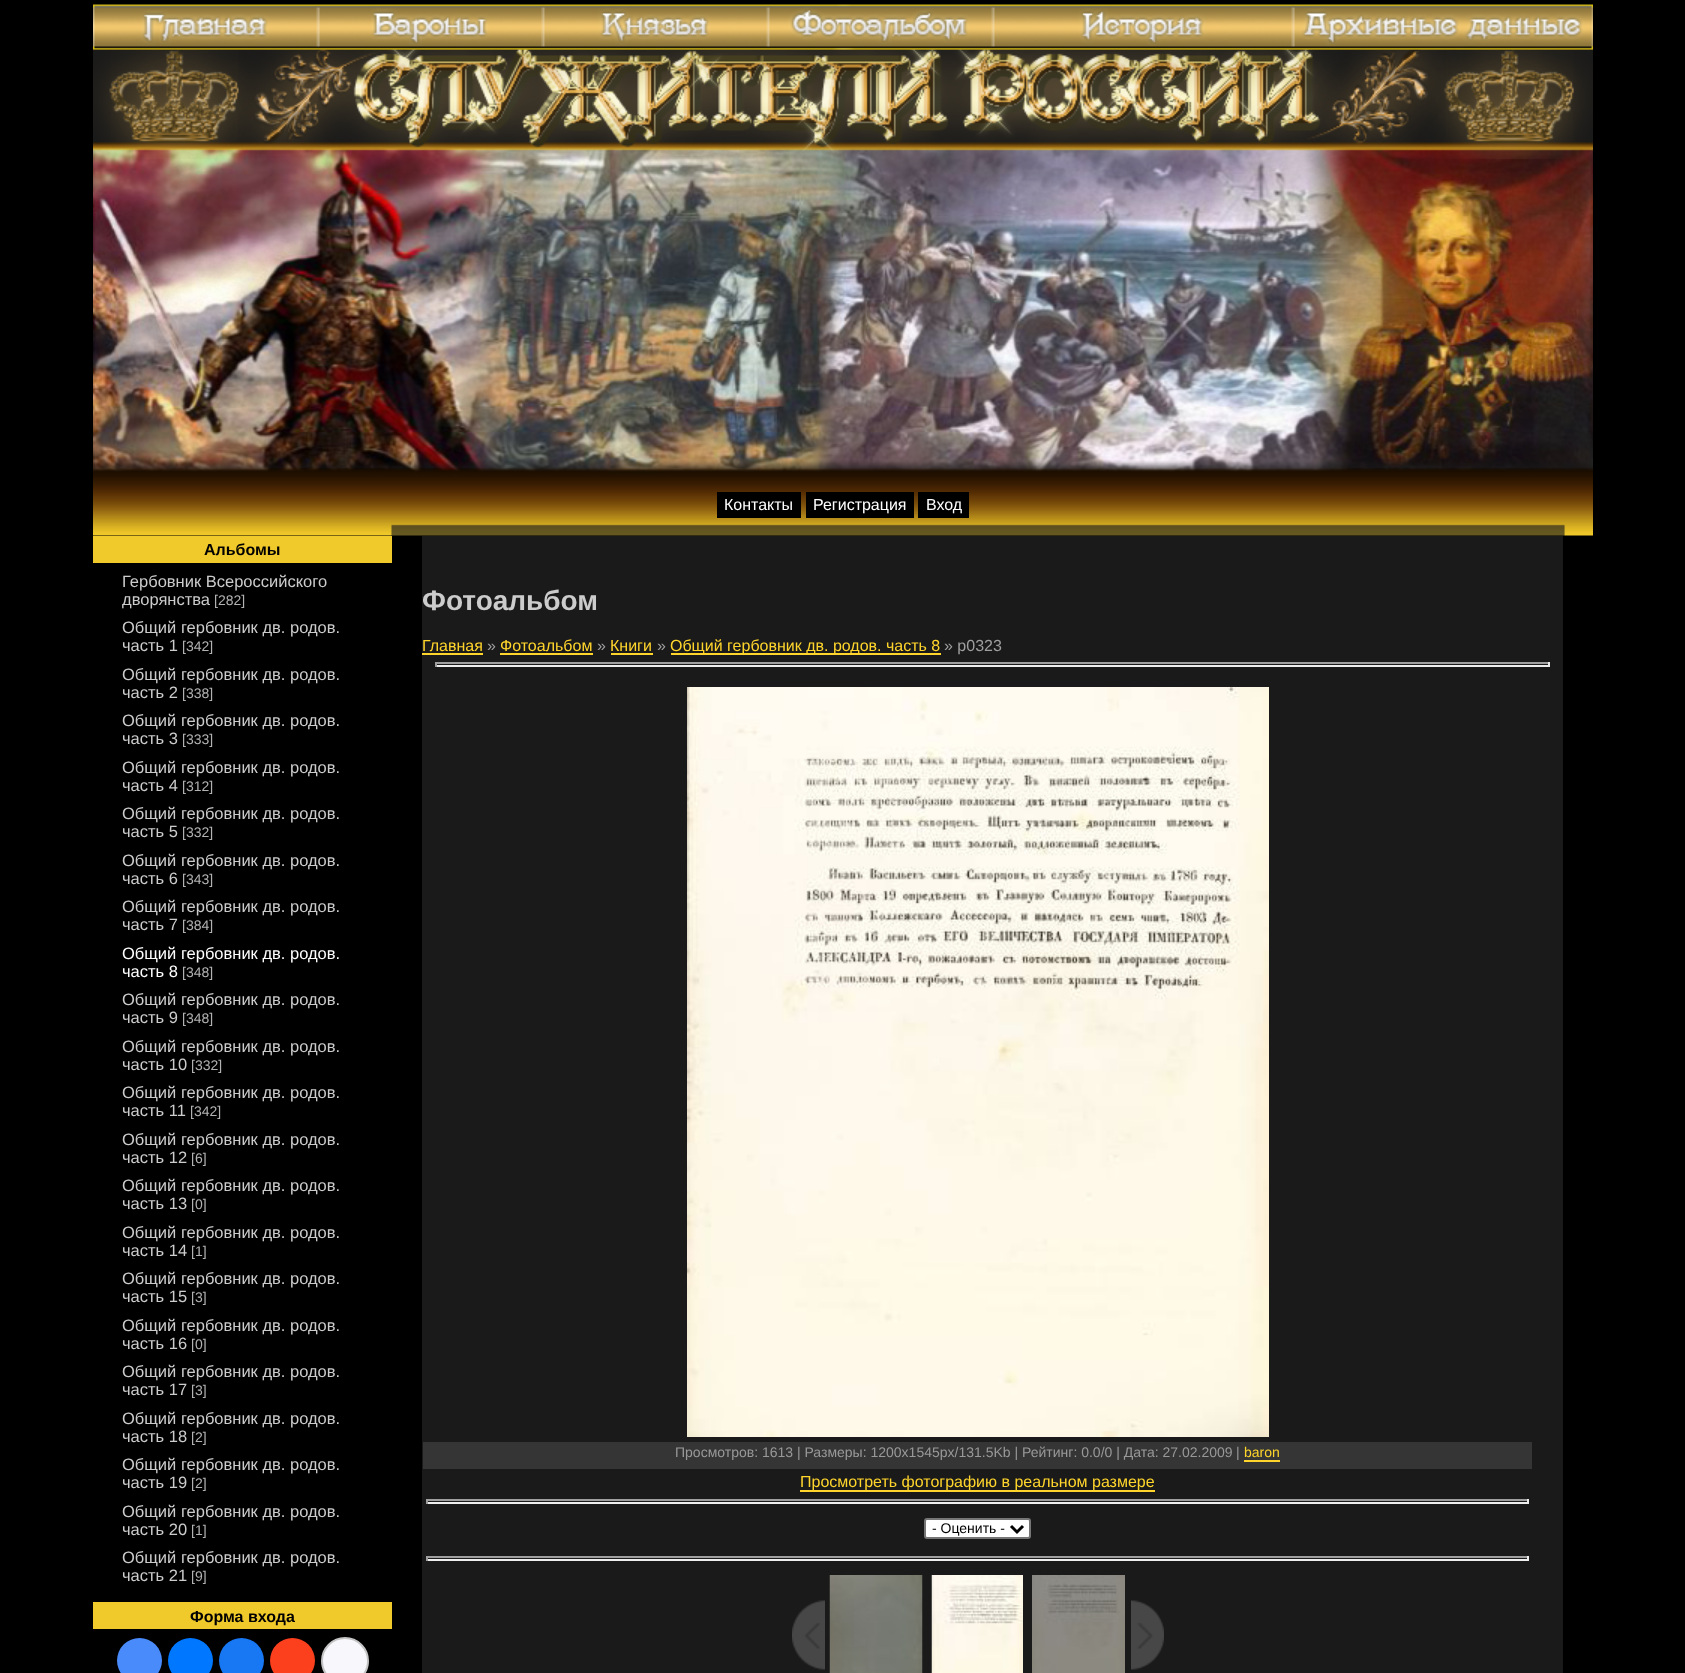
<?xml version="1.0" encoding="UTF-8"?>
<svg xmlns="http://www.w3.org/2000/svg" width="1685" height="1673">
    <rect width="100%" height="100%" fill="#000000"/>
    <image x="93" y="49" width="1500" height="487" href="img_08.png"/>
    <image x="93" y="4" width="1500" height="46" href="img_01.png"/>
    <image x="93" y="7" width="225" height="40" href="img_02.png"/>
    <image x="318" y="7" width="225" height="40" href="img_03.png"/>
    <image x="543" y="7" width="225" height="40" href="img_04.png"/>
    <image x="768" y="7" width="225" height="40" href="img_05.png"/>
    <image x="993" y="7" width="300" height="40" href="img_06.png"/>
    <image x="1293" y="7" width="300" height="40" href="img_07.png"/>
    <rect x="717" y="492" width="84" height="26" fill="#000000"/>
    <text x="724" y="510" font-family="Liberation Sans" font-size="16" fill="#FFFFFF">Контакты</text>
    <rect x="806" y="492" width="108" height="26" fill="#000000"/>
    <text x="813" y="510" font-family="Liberation Sans" font-size="16" fill="#FFFFFF">Регистрация</text>
    <rect x="918" y="492" width="51" height="26" fill="#000000"/>
    <text x="926" y="510" font-family="Liberation Sans" font-size="16" fill="#FFFFFF">Вход</text>
    <rect x="93" y="536" width="299" height="27" fill="#F0CA2A"/>
    <text x="204" y="555" font-family="Liberation Sans" font-size="16" font-weight="700" fill="#000000">Альбомы</text>
    <text font-family="Liberation Sans" font-size="16.5" fill="#CCCCCC">
        <tspan x="122" y="587">Гербовник Всероссийского</tspan>
        <tspan x="122" y="605">дворянства</tspan>
    </text>
    <text x="214" y="605" font-family="Liberation Sans" font-size="14" fill="#B2B2B2">[282]</text>
    <text font-family="Liberation Sans" font-size="16.5" fill="#CCCCCC">
        <tspan x="122" y="633">Общий гербовник дв. родов.</tspan>
        <tspan x="122" y="651">часть 1</tspan>
    </text>
    <text x="182" y="651" font-family="Liberation Sans" font-size="14" fill="#B2B2B2">[342]</text>
    <text font-family="Liberation Sans" font-size="16.5" fill="#CCCCCC">
        <tspan x="122" y="680">Общий гербовник дв. родов.</tspan>
        <tspan x="122" y="698">часть 2</tspan>
    </text>
    <text x="182" y="698" font-family="Liberation Sans" font-size="14" fill="#B2B2B2">[338]</text>
    <text font-family="Liberation Sans" font-size="16.5" fill="#CCCCCC">
        <tspan x="122" y="726">Общий гербовник дв. родов.</tspan>
        <tspan x="122" y="744">часть 3</tspan>
    </text>
    <text x="182" y="744" font-family="Liberation Sans" font-size="14" fill="#B2B2B2">[333]</text>
    <text font-family="Liberation Sans" font-size="16.5" fill="#CCCCCC">
        <tspan x="122" y="773">Общий гербовник дв. родов.</tspan>
        <tspan x="122" y="791">часть 4</tspan>
    </text>
    <text x="182" y="791" font-family="Liberation Sans" font-size="14" fill="#B2B2B2">[312]</text>
    <text font-family="Liberation Sans" font-size="16.5" fill="#CCCCCC">
        <tspan x="122" y="819">Общий гербовник дв. родов.</tspan>
        <tspan x="122" y="837">часть 5</tspan>
    </text>
    <text x="182" y="837" font-family="Liberation Sans" font-size="14" fill="#B2B2B2">[332]</text>
    <text font-family="Liberation Sans" font-size="16.5" fill="#CCCCCC">
        <tspan x="122" y="866">Общий гербовник дв. родов.</tspan>
        <tspan x="122" y="884">часть 6</tspan>
    </text>
    <text x="182" y="884" font-family="Liberation Sans" font-size="14" fill="#B2B2B2">[343]</text>
    <text font-family="Liberation Sans" font-size="16.5" fill="#CCCCCC">
        <tspan x="122" y="912">Общий гербовник дв. родов.</tspan>
        <tspan x="122" y="930">часть 7</tspan>
    </text>
    <text x="182" y="930" font-family="Liberation Sans" font-size="14" fill="#B2B2B2">[384]</text>
    <text font-family="Liberation Sans" font-size="16.5" fill="#FFFFFF">
        <tspan x="122" y="959">Общий гербовник дв. родов.</tspan>
        <tspan x="122" y="977">часть 8</tspan>
    </text>
    <text x="182" y="977" font-family="Liberation Sans" font-size="14" fill="#B2B2B2">[348]</text>
    <text font-family="Liberation Sans" font-size="16.5" fill="#CCCCCC">
        <tspan x="122" y="1005">Общий гербовник дв. родов.</tspan>
        <tspan x="122" y="1023">часть 9</tspan>
    </text>
    <text x="182" y="1023" font-family="Liberation Sans" font-size="14" fill="#B2B2B2">[348]</text>
    <text font-family="Liberation Sans" font-size="16.5" fill="#CCCCCC">
        <tspan x="122" y="1052">Общий гербовник дв. родов.</tspan>
        <tspan x="122" y="1070">часть 10</tspan>
    </text>
    <text x="191" y="1070" font-family="Liberation Sans" font-size="14" fill="#B2B2B2">[332]</text>
    <text font-family="Liberation Sans" font-size="16.5" fill="#CCCCCC">
        <tspan x="122" y="1098">Общий гербовник дв. родов.</tspan>
        <tspan x="122" y="1116">часть 11</tspan>
    </text>
    <text x="190" y="1116" font-family="Liberation Sans" font-size="14" fill="#B2B2B2">[342]</text>
    <text font-family="Liberation Sans" font-size="16.5" fill="#CCCCCC">
        <tspan x="122" y="1145">Общий гербовник дв. родов.</tspan>
        <tspan x="122" y="1163">часть 12</tspan>
    </text>
    <text x="191" y="1163" font-family="Liberation Sans" font-size="14" fill="#B2B2B2">[6]</text>
    <text font-family="Liberation Sans" font-size="16.5" fill="#CCCCCC">
        <tspan x="122" y="1191">Общий гербовник дв. родов.</tspan>
        <tspan x="122" y="1209">часть 13</tspan>
    </text>
    <text x="191" y="1209" font-family="Liberation Sans" font-size="14" fill="#B2B2B2">[0]</text>
    <text font-family="Liberation Sans" font-size="16.5" fill="#CCCCCC">
        <tspan x="122" y="1238">Общий гербовник дв. родов.</tspan>
        <tspan x="122" y="1256">часть 14</tspan>
    </text>
    <text x="191" y="1256" font-family="Liberation Sans" font-size="14" fill="#B2B2B2">[1]</text>
    <text font-family="Liberation Sans" font-size="16.5" fill="#CCCCCC">
        <tspan x="122" y="1284">Общий гербовник дв. родов.</tspan>
        <tspan x="122" y="1302">часть 15</tspan>
    </text>
    <text x="191" y="1302" font-family="Liberation Sans" font-size="14" fill="#B2B2B2">[3]</text>
    <text font-family="Liberation Sans" font-size="16.5" fill="#CCCCCC">
        <tspan x="122" y="1331">Общий гербовник дв. родов.</tspan>
        <tspan x="122" y="1349">часть 16</tspan>
    </text>
    <text x="191" y="1349" font-family="Liberation Sans" font-size="14" fill="#B2B2B2">[0]</text>
    <text font-family="Liberation Sans" font-size="16.5" fill="#CCCCCC">
        <tspan x="122" y="1377">Общий гербовник дв. родов.</tspan>
        <tspan x="122" y="1395">часть 17</tspan>
    </text>
    <text x="191" y="1395" font-family="Liberation Sans" font-size="14" fill="#B2B2B2">[3]</text>
    <text font-family="Liberation Sans" font-size="16.5" fill="#CCCCCC">
        <tspan x="122" y="1424">Общий гербовник дв. родов.</tspan>
        <tspan x="122" y="1442">часть 18</tspan>
    </text>
    <text x="191" y="1442" font-family="Liberation Sans" font-size="14" fill="#B2B2B2">[2]</text>
    <text font-family="Liberation Sans" font-size="16.5" fill="#CCCCCC">
        <tspan x="122" y="1470">Общий гербовник дв. родов.</tspan>
        <tspan x="122" y="1488">часть 19</tspan>
    </text>
    <text x="191" y="1488" font-family="Liberation Sans" font-size="14" fill="#B2B2B2">[2]</text>
    <text font-family="Liberation Sans" font-size="16.5" fill="#CCCCCC">
        <tspan x="122" y="1517">Общий гербовник дв. родов.</tspan>
        <tspan x="122" y="1535">часть 20</tspan>
    </text>
    <text x="191" y="1535" font-family="Liberation Sans" font-size="14" fill="#B2B2B2">[1]</text>
    <text font-family="Liberation Sans" font-size="16.5" fill="#CCCCCC">
        <tspan x="122" y="1563">Общий гербовник дв. родов.</tspan>
        <tspan x="122" y="1581">часть 21</tspan>
    </text>
    <text x="191" y="1581" font-family="Liberation Sans" font-size="14" fill="#B2B2B2">[9]</text>
    <rect x="93" y="1602" width="299" height="27" fill="#F0CA2A"/>
    <text x="190" y="1622" font-family="Liberation Sans" font-size="16" font-weight="700" fill="#000000">Форма входа</text>
    <circle cx="139.5" cy="1660.5" r="22.5" fill="#498BFA"/>
    <circle cx="190.5" cy="1660.5" r="22.5" fill="#0077FF"/>
    <circle cx="241.5" cy="1660.5" r="22.5" fill="#1877F2"/>
    <circle cx="292.5" cy="1660.5" r="22.5" fill="#FC3F1D"/>
    <circle cx="345" cy="1661" r="23" fill="#F8F8FC" stroke="#C4C4C4" stroke-width="2"/>
    <rect x="422" y="536" width="1141" height="1137" fill="#1A1A1A"/>
    <text x="422" y="610" font-family="Liberation Sans" font-size="28" font-weight="700" fill="#CCCCCC">Фотоальбом</text>
    <text x="422" y="651" font-family="Liberation Sans" font-size="16" fill="#FFD52C">Главная</text>
    <rect x="422" y="653" width="61" height="2" fill="#FFD52C"/>
    <text x="487" y="651" font-family="Liberation Sans" font-size="16" fill="#9F9F9F">»</text>
    <text x="500" y="651" font-family="Liberation Sans" font-size="16" fill="#FFD52C">Фотоальбом</text>
    <rect x="500" y="653" width="93" height="2" fill="#FFD52C"/>
    <text x="597" y="651" font-family="Liberation Sans" font-size="16" fill="#9F9F9F">»</text>
    <text x="610" y="651" font-family="Liberation Sans" font-size="16" fill="#FFD52C">Книги</text>
    <rect x="611" y="653" width="42" height="2" fill="#FFD52C"/>
    <text x="657" y="651" font-family="Liberation Sans" font-size="16" fill="#9F9F9F">»</text>
    <rect x="671" y="653" width="270" height="2" fill="#FFD52C"/>
    <text x="670" y="651" font-family="Liberation Sans" font-size="16" fill="#FFD52C">Общий гербовник дв. родов. часть 8</text>
    <text x="944" y="651" font-family="Liberation Sans" font-size="16" fill="#9F9F9F">» p0323</text>
    <rect x="435" y="662" width="1115" height="2" fill="#9F9F9F"/>
    <rect x="1548" y="662" width="2" height="5" fill="#EEEEEE"/>
    <rect x="435" y="665" width="1115" height="2" fill="#EEEEEE"/>
    <rect x="435" y="662" width="2" height="5" fill="#9F9F9F"/>
    <image x="687" y="687" width="582" height="750" href="img_09.png"/>
    <rect x="423" y="1442" width="1109" height="27" fill="#353535"/>
    <text x="675" y="1457" font-family="Liberation Sans" font-size="14" fill="#999999">Просмотров: 1613 | Размеры: 1200x1545px/131.5Kb | Рейтинг: 0.0/0 | Дата: 27.02.2009</text>
    <text x="1236" y="1457" font-family="Liberation Sans" font-size="14" fill="#999999">|</text>
    <text x="1244" y="1457" font-family="Liberation Sans" font-size="14" fill="#FFD52C">baron</text>
    <rect x="1244" y="1460" width="36" height="2" fill="#FFD52C"/>
    <rect x="800" y="1490" width="355" height="2" fill="#FFD52C"/>
    <text x="800" y="1487" font-family="Liberation Sans" font-size="16" fill="#FFD52C">Просмотреть фотографию в реальном размере</text>
    <rect x="426" y="1499" width="1103" height="2" fill="#9F9F9F"/>
    <rect x="1527" y="1499" width="2" height="5" fill="#EEEEEE"/>
    <rect x="426" y="1502" width="1103" height="2" fill="#EEEEEE"/>
    <rect x="426" y="1499" width="2" height="5" fill="#9F9F9F"/>
    <rect x="925" y="1519" width="105" height="19" rx="2" fill="#FFFFFF" stroke="#767676" stroke-width="2"/>
    <path d="M 1011 1526 L 1017 1532 L 1023 1526" fill="none" stroke="#000000" stroke-width="3"/>
    <text x="932" y="1533" font-family="Liberation Sans" font-size="14" fill="#000000">- Оценить -</text>
    <rect x="426" y="1556" width="1103" height="2" fill="#9F9F9F"/>
    <rect x="1527" y="1556" width="2" height="5" fill="#EEEEEE"/>
    <rect x="426" y="1559" width="1103" height="2" fill="#EEEEEE"/>
    <rect x="426" y="1556" width="2" height="5" fill="#9F9F9F"/>
    <image x="792" y="1600" width="33" height="70" href="img_10.png"/>
    <image x="829" y="1575" width="94" height="98" href="img_11.png"/>
    <image x="931" y="1575" width="92" height="98" href="img_12.png"/>
    <image x="1032" y="1575" width="93" height="98" href="img_13.png"/>
    <image x="1131" y="1600" width="33" height="70" href="img_14.png"/>
</svg>
